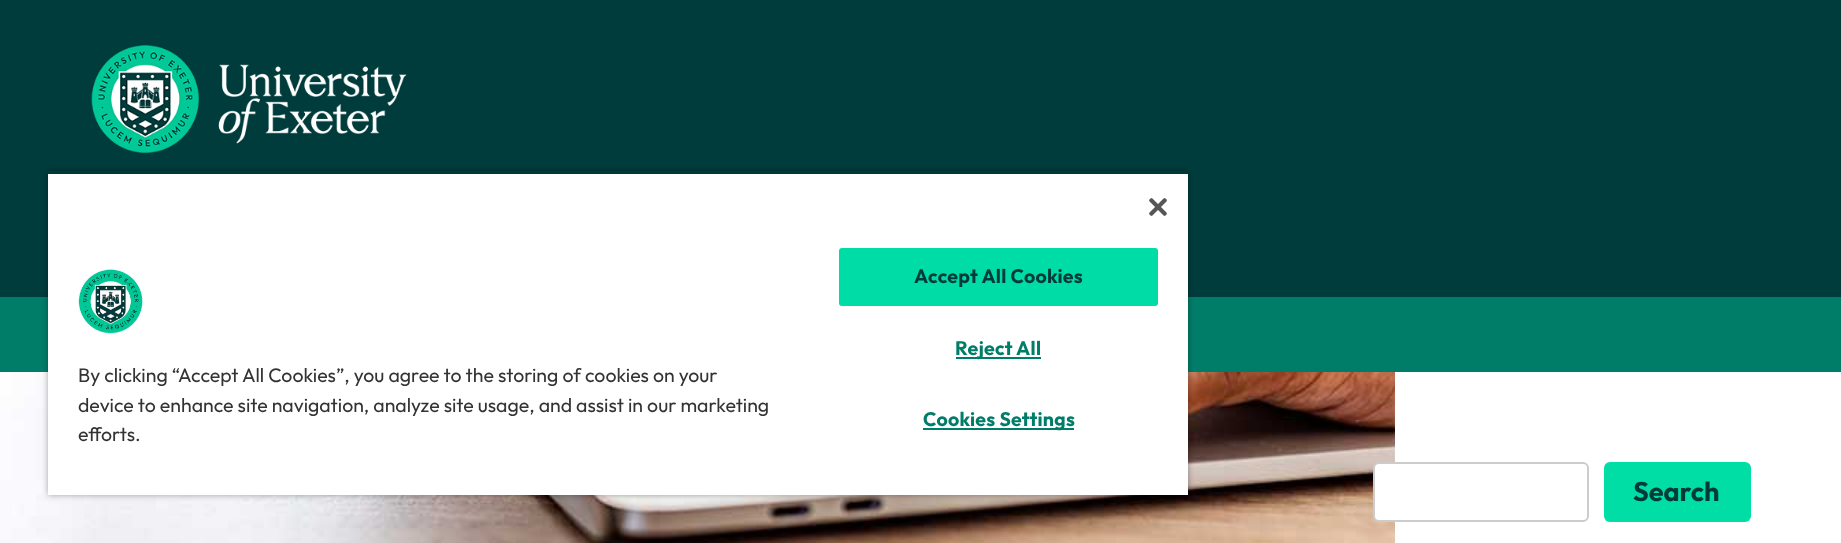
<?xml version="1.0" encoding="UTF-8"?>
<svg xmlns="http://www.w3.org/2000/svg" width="1841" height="543">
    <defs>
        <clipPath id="clip1"><path d="M 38 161 H 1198 V 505 H 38 Z M 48 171 H 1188 V 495 H 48 Z" clip-rule="evenodd"/></clipPath>
        <filter id="blur1" x="-50%" y="-200%" width="200%" height="500%"><feGaussianBlur stdDeviation="3"/></filter>
        <clipPath id="clip2"><rect x="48" y="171" width="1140" height="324"/></clipPath>
    </defs>
    <rect width="100%" height="100%" fill="#FFFFFF"/>
    <image x="0" y="372" width="1395" height="171" href="img_01.png"/>
    <rect x="0" y="0" width="1841" height="297" fill="#003C3C"/>
    <rect x="0" y="297" width="1841" height="75" fill="#007D69"/>
    <g clip-path="url(#clip1)">
        <rect x="48" y="171" width="1140" height="324" fill="#000000" fill-opacity="0.35" filter="url(#blur1)"/>
    </g>
    <g clip-path="url(#clip2)">
        <rect x="48" y="174" width="1140" height="321" fill="#000000" fill-opacity="0.2" filter="url(#blur1)"/>
    </g>
    <rect x="48" y="174" width="1140" height="321" fill="#FFFFFF"/>
    <image x="1149" y="198" width="18" height="18" href="img_02.png"/>
    <image x="78" y="269" width="66" height="66" href="img_03.png"/>
    <text font-family="Outfit" font-size="19.5" fill="#333333">
        <tspan x="78" y="382">By clicking “Accept All Cookies”, you agree to the storing of cookies on your</tspan>
        <tspan x="78" y="412">device to enhance site navigation, analyze site usage, and assist in our marketing</tspan>
        <tspan x="78" y="441">efforts.</tspan>
    </text>
    <rect x="840" y="249" width="317" height="56" rx="2" fill="#00DCA5" stroke="#00DCA5" stroke-width="2"/>
    <text x="914" y="283" font-family="Outfit" font-size="19.5" font-weight="700" letter-spacing="0.25" fill="#003B3C">Accept All Cookies</text>
    <rect x="956" y="357" width="85" height="2" fill="#007D69"/>
    <text x="955" y="355" font-family="Outfit" font-size="19.5" font-weight="700" letter-spacing="0.25" fill="#007D69">Reject All</text>
    <rect x="923" y="428" width="151" height="2" fill="#007D69"/>
    <text x="923" y="426" font-family="Outfit" font-size="19.5" font-weight="700" letter-spacing="0.25" fill="#007D69">Cookies Settings</text>
    <image x="91" y="45" width="316" height="108" href="img_04.png"/>
    <rect x="1374" y="463" width="214" height="58" rx="5" fill="#FFFFFF" stroke="#CCCCCC" stroke-width="2"/>
    <rect x="1604" y="462" width="147" height="60" rx="6" fill="#00DEA5"/>
    <text x="1633" y="501" font-family="Outfit" font-size="27" font-weight="700" fill="#003B3C">Search</text>
</svg>
